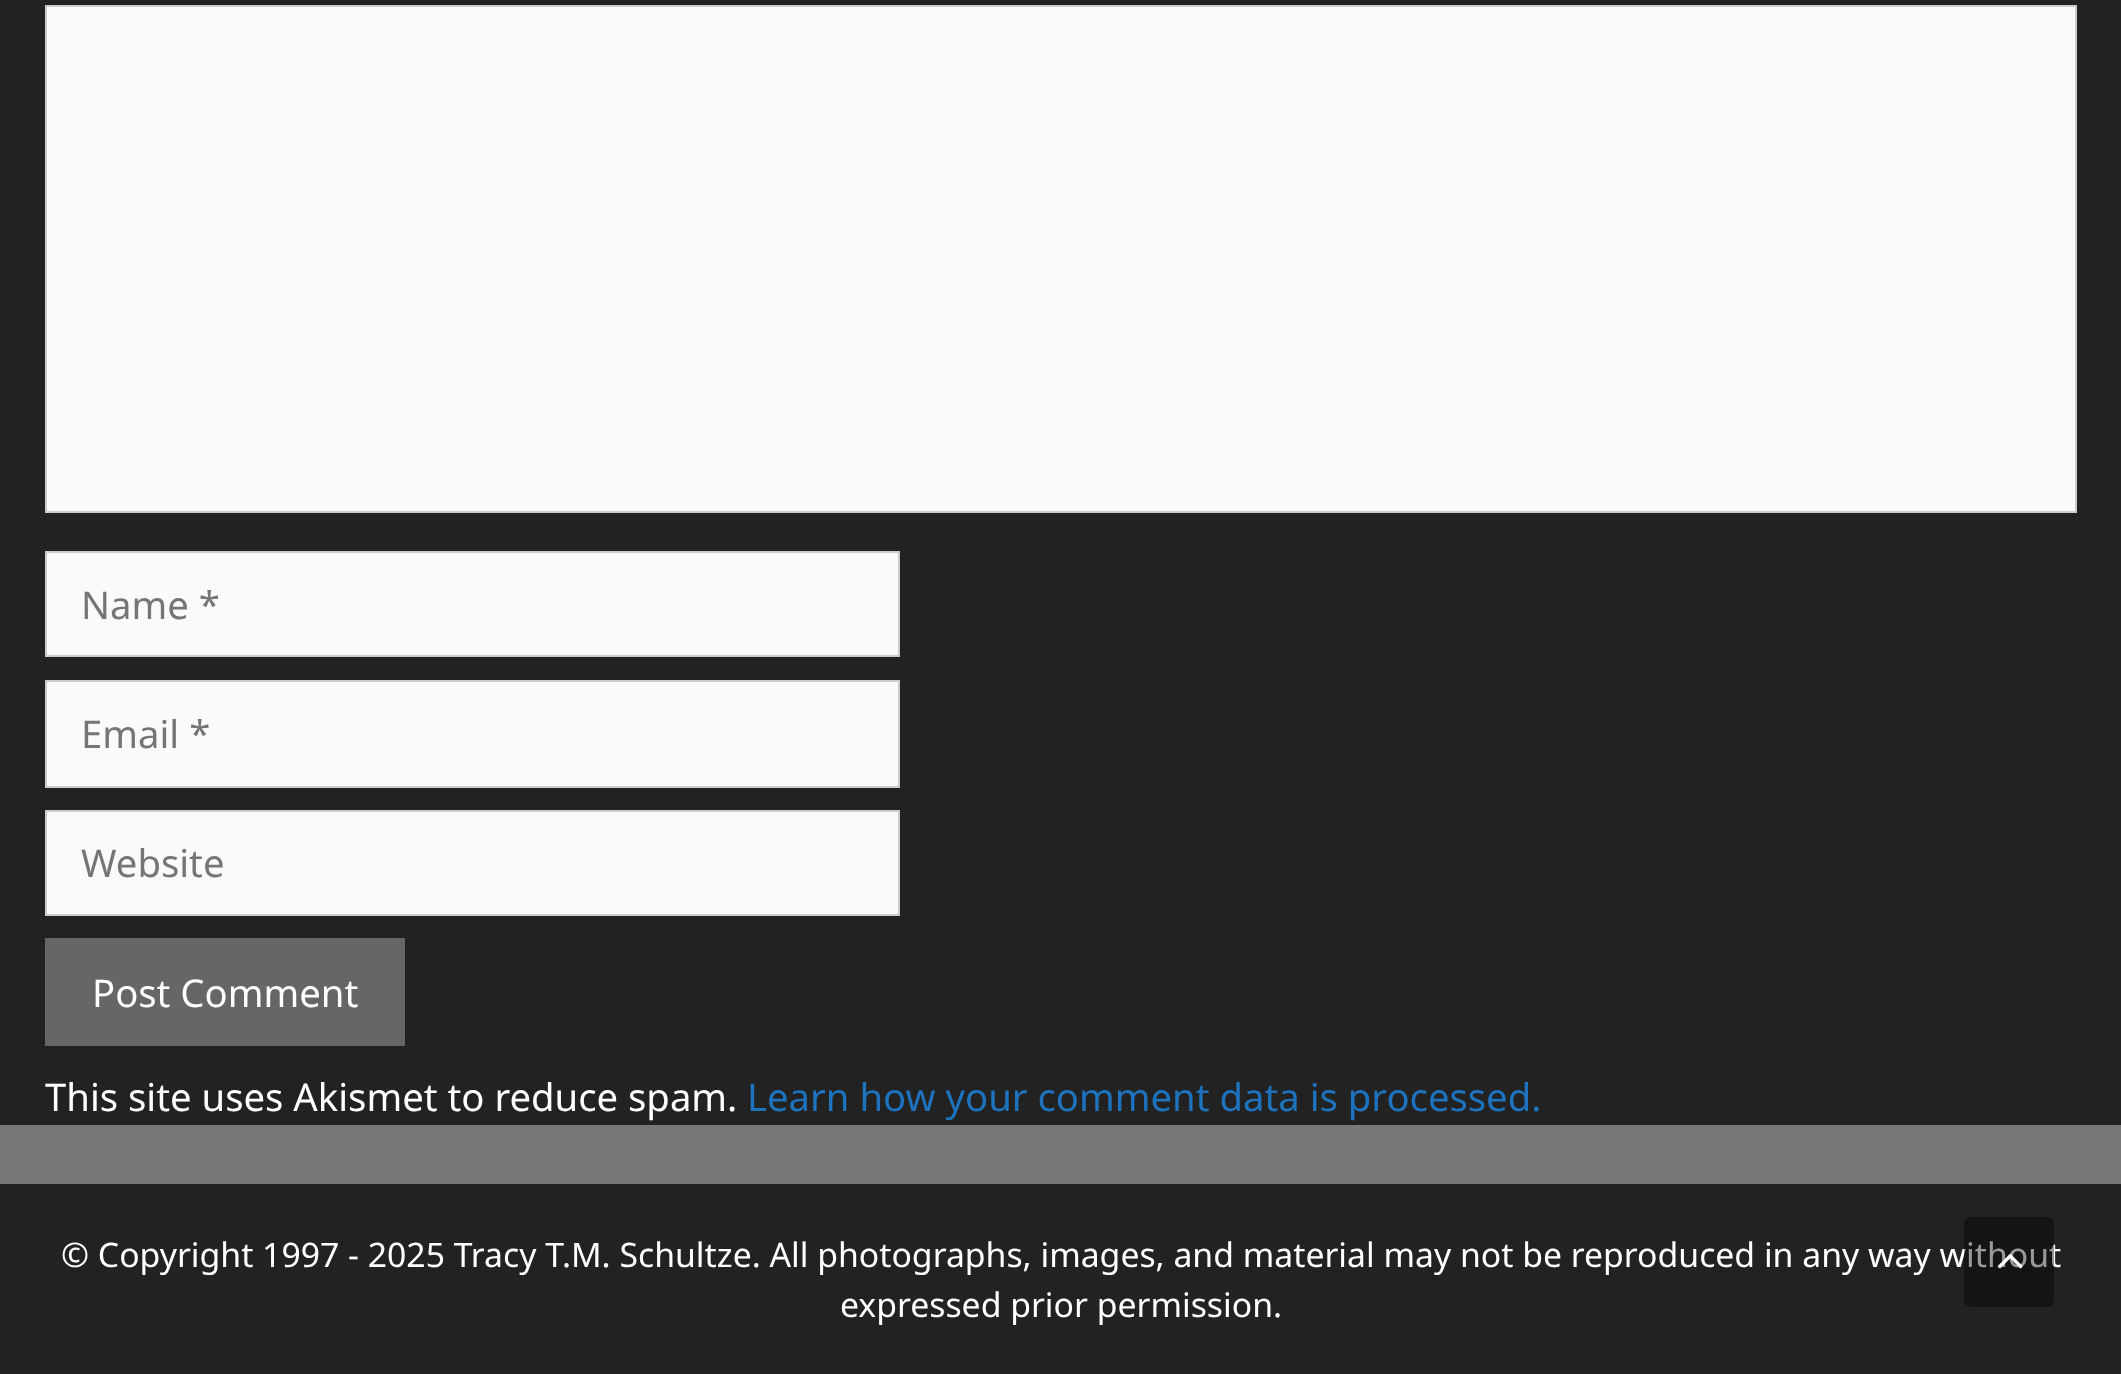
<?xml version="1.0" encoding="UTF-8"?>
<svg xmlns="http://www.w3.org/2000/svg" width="2121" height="1374">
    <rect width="100%" height="100%" fill="#777777"/>
    <rect x="0" y="0" width="2121" height="1125" fill="#222222"/>
    <rect x="46" y="6" width="2030" height="506" fill="#FAFAFA" stroke="#CCCCCC" stroke-width="2"/>
    <rect x="46" y="552" width="853" height="104" fill="#FAFAFA" stroke="#CCCCCC" stroke-width="2"/>
    <text x="81" y="619" font-family="Noto Sans" font-size="38.25" fill="#757575">Name *</text>
    <rect x="46" y="681" width="853" height="106" fill="#FAFAFA" stroke="#CCCCCC" stroke-width="2"/>
    <text x="81" y="748" font-family="Noto Sans" font-size="38.25" fill="#757575">Email *</text>
    <rect x="46" y="811" width="853" height="104" fill="#FAFAFA" stroke="#CCCCCC" stroke-width="2"/>
    <text x="81" y="877" font-family="Noto Sans" font-size="38.25" fill="#757575">Website</text>
    <rect x="45" y="938" width="360" height="108" fill="#666666"/>
    <text x="92" y="1007" font-family="Noto Sans" font-size="38.25" fill="#FFFFFF">Post Comment</text>
    <text x="45" y="1111" font-family="Noto Sans" font-size="38.25" fill="#FFFFFF">This site uses Akismet to reduce spam.</text>
    <text x="747" y="1111" font-family="Noto Sans" font-size="38.25" fill="#1E73BE">Learn how your comment data is processed.</text>
    <rect x="0" y="1184" width="2121" height="190" fill="#222222"/>
    <text x="61" y="1267" font-family="Noto Sans" font-size="33.75" fill="#FFFFFF">© Copyright 1997 - 2025 Tracy T.M. Schultze. All photographs, images, and material may not be reproduced in any way without</text>
    <rect x="1964" y="1217" width="90" height="90" rx="7" fill="#000000" fill-opacity="0.4"/>
    <image x="1997" y="1253" width="26" height="16" href="img_01.png"/>
    <text x="840" y="1317" font-family="Noto Sans" font-size="33.75" fill="#FFFFFF">expressed prior permission.</text>
</svg>
